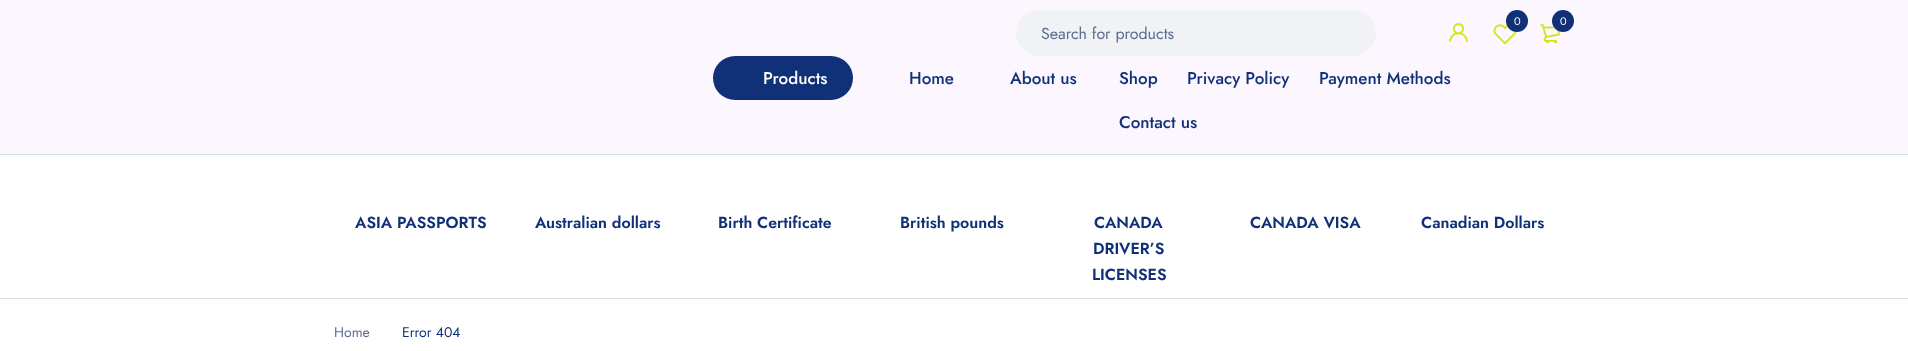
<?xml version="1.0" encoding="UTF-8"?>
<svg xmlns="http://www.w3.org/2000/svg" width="1908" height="351">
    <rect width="100%" height="100%" fill="#FFFFFF"/>
    <rect x="0" y="0" width="1908" height="154" fill="#FCF7FF"/>
    <rect x="0" y="154" width="1908" height="1" fill="#D9DEE8"/>
    <image x="1493" y="24" width="24" height="21" href="img_01.png"/>
    <circle cx="1517" cy="21" r="11" fill="#103178"/>
    <text x="1514" y="25" font-family="Jost" font-size="11" fill="#FFFFFF">0</text>
    <image x="1540" y="24" width="20" height="20" href="img_02.png"/>
    <circle cx="1563" cy="21" r="11" fill="#103178"/>
    <text x="1560" y="25" font-family="Jost" font-size="11" fill="#FFFFFF">0</text>
    <rect x="1016" y="10" width="360" height="46" rx="23" fill="#F0F2F5"/>
    <text x="1041" y="39" font-family="Jost" font-size="16" fill="#5B6C8F">Search for products</text>
    <image x="1449" y="23" width="19" height="19" href="img_03.png"/>
    <rect x="713" y="56" width="140" height="44" rx="22" fill="#103178"/>
    <text x="763" y="84" font-family="Jost" font-size="17" font-weight="500" fill="#FFFFFF">Products</text>
    <text x="909" y="84" font-family="Jost" font-size="17" font-weight="500" fill="#103178">Home</text>
    <text x="1010" y="84" font-family="Jost" font-size="17" font-weight="500" fill="#103178">About us</text>
    <text x="1119" y="84" font-family="Jost" font-size="17" font-weight="500" fill="#103178">Shop</text>
    <text x="1187" y="84" font-family="Jost" font-size="17" font-weight="500" fill="#103178">Privacy Policy</text>
    <text x="1319" y="84" font-family="Jost" font-size="17" font-weight="500" fill="#103178">Payment Methods</text>
    <text x="1119" y="128" font-family="Jost" font-size="17" font-weight="500" fill="#103178">Contact us</text>
    <rect x="0" y="298" width="1908" height="1" fill="#D9DEE8"/>
    <text x="355" y="228" font-family="Jost" font-size="16" font-weight="600" fill="#103178">ASIA PASSPORTS</text>
    <text x="535" y="228" font-family="Jost" font-size="16" font-weight="600" fill="#103178">Australian dollars</text>
    <text x="718" y="228" font-family="Jost" font-size="16" font-weight="600" fill="#103178">Birth Certificate</text>
    <text x="900" y="228" font-family="Jost" font-size="16" font-weight="600" fill="#103178">British pounds</text>
    <text x="1094" y="228" font-family="Jost" font-size="16" font-weight="600" fill="#103178">CANADA</text>
    <text x="1093" y="254" font-family="Jost" font-size="16" font-weight="600" fill="#103178">DRIVER’S</text>
    <text x="1092" y="280" font-family="Jost" font-size="16" font-weight="600" fill="#103178">LICENSES</text>
    <text x="1250" y="228" font-family="Jost" font-size="16" font-weight="600" fill="#103178">CANADA VISA</text>
    <text x="1421" y="228" font-family="Jost" font-size="16" font-weight="600" fill="#103178">Canadian Dollars</text>
    <text x="334" y="337" font-family="Jost" font-size="14" fill="#5B6C8F">Home</text>
    <text x="402" y="337" font-family="Jost" font-size="14" fill="#103178">Error 404</text>
</svg>
